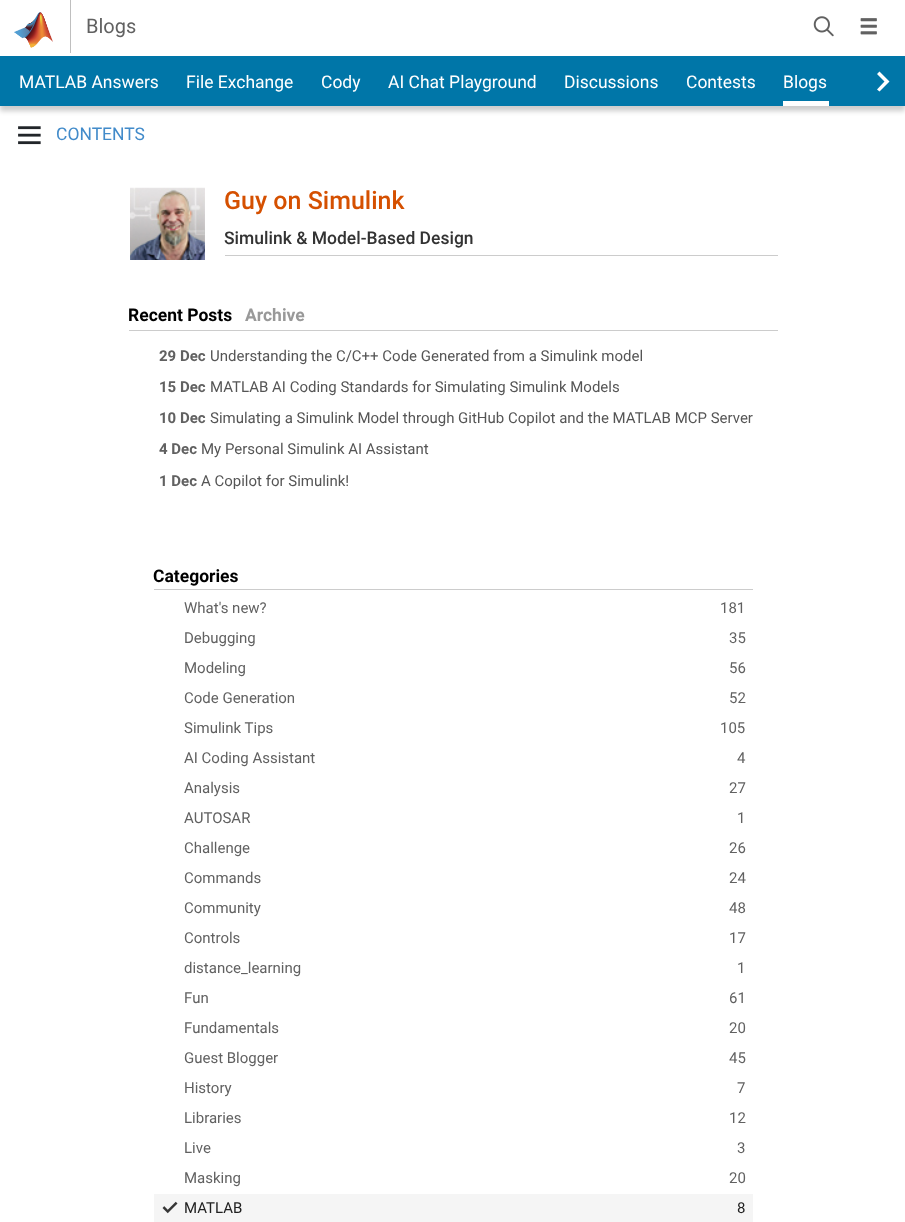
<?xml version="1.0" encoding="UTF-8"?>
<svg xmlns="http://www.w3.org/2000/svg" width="905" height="1222">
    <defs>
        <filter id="blur1" x="-50%" y="-200%" width="200%" height="500%"><feGaussianBlur stdDeviation="2.5"/></filter>
        <linearGradient id="g1" gradientUnits="userSpaceOnUse" x1="830" y1="81" x2="893" y2="81"><stop offset="0" stop-color="#0076A8" stop-opacity="0"/><stop offset="0.5" stop-color="#0076A8"/><stop offset="1" stop-color="#0076A8"/></linearGradient>
    </defs>
    <rect width="100%" height="100%" fill="#FFFFFF"/>
    <rect x="70" y="0" width="1" height="53" fill="#BFBFBF"/>
    <image x="14" y="12" width="39" height="36" href="img_01.png"/>
    <text x="86" y="33" font-family="Roboto" font-size="20" fill="#616161">Blogs</text>
    <image x="813" y="16" width="21" height="21" href="img_02.png"/>
    <image x="860" y="18" width="17" height="17" href="img_03.png"/>
    <rect x="0" y="61" width="905" height="50" fill="#000000" fill-opacity="0.2" filter="url(#blur1)"/>
    <rect x="0" y="56" width="861" height="50" fill="#0076A8"/>
    <text x="19" y="88" font-family="Roboto" font-size="17.5" fill="#FFFFFF">MATLAB Answers</text>
    <text x="186" y="88" font-family="Roboto" font-size="17.5" fill="#FFFFFF">File Exchange</text>
    <text x="321" y="88" font-family="Roboto" font-size="17.5" fill="#FFFFFF">Cody</text>
    <text x="388" y="88" font-family="Roboto" font-size="17.5" fill="#FFFFFF">AI Chat Playground</text>
    <text x="564" y="88" font-family="Roboto" font-size="17.5" fill="#FFFFFF">Discussions</text>
    <text x="686" y="88" font-family="Roboto" font-size="17.5" fill="#FFFFFF">Contests</text>
    <rect x="783" y="101" width="46" height="5" fill="#FFFFFF"/>
    <text x="783" y="88" font-family="Roboto" font-size="17.5" fill="#FFFFFF">Blogs</text>
    <rect x="861" y="56" width="29" height="50" fill="url(#g1)"/>
    <path d="M 879.5 71.5 L 877 74 L 884.5 81.5 L 877 89.5 L 879.5 91.5 L 889.5 81.5 Z" fill="#FFFFFF"/>
    <rect x="890" y="56" width="15" height="50" fill="#0076A8"/>
    <image x="18" y="126" width="23" height="19" href="img_04.png"/>
    <text x="56" y="140" font-family="Roboto" font-size="17.5" fill="#428BCA">CONTENTS</text>
    <image x="130" y="187" width="75" height="73" href="img_05.png"/>
    <rect x="225" y="255" width="553" height="1" fill="#CCCCCC"/>
    <text x="224" y="209" font-family="Roboto" font-size="25" font-weight="500" fill="#D55000">Guy on Simulink</text>
    <text x="224" y="244" font-family="Roboto" font-size="17.5" font-weight="500" fill="#333333">Simulink &amp; Model-Based Design</text>
    <rect x="129" y="330" width="649" height="1" fill="#CCCCCC"/>
    <text x="128" y="321" font-family="Roboto" font-size="17.5" font-weight="700" fill="#000000">Recent Posts</text>
    <text x="245" y="321" font-family="Roboto" font-size="17.5" font-weight="700" fill="#999999">Archive</text>
    <text x="159" y="361" font-family="Roboto" font-size="15" font-weight="700" fill="#616161">29 Dec</text>
    <text x="210" y="361" font-family="Roboto" font-size="15" fill="#555555">Understanding the C/C++ Code Generated from a Simulink model</text>
    <text x="159" y="392" font-family="Roboto" font-size="15" font-weight="700" fill="#616161">15 Dec</text>
    <text x="210" y="392" font-family="Roboto" font-size="15" fill="#555555">MATLAB AI Coding Standards for Simulating Simulink Models</text>
    <text x="159" y="423" font-family="Roboto" font-size="15" font-weight="700" fill="#616161">10 Dec</text>
    <text x="210" y="423" font-family="Roboto" font-size="15" fill="#555555">Simulating a Simulink Model through GitHub Copilot and the MATLAB MCP Server</text>
    <text x="159" y="454" font-family="Roboto" font-size="15" font-weight="700" fill="#616161">4 Dec</text>
    <text x="201" y="454" font-family="Roboto" font-size="15" fill="#555555">My Personal Simulink AI Assistant</text>
    <text x="159" y="486" font-family="Roboto" font-size="15" font-weight="700" fill="#616161">1 Dec</text>
    <text x="201" y="486" font-family="Roboto" font-size="15" fill="#555555">A Copilot for Simulink!</text>
    <rect x="154" y="589" width="599" height="1" fill="#CCCCCC"/>
    <text x="153" y="582" font-family="Roboto" font-size="17.5" font-weight="700" fill="#000000">Categories</text>
    <text x="184" y="613" font-family="Roboto" font-size="15" fill="#616161">What's new?</text>
    <text x="720" y="613" font-family="Roboto" font-size="15" fill="#616161">181</text>
    <text x="184" y="643" font-family="Roboto" font-size="15" fill="#616161">Debugging</text>
    <text x="729" y="643" font-family="Roboto" font-size="15" fill="#616161">35</text>
    <text x="184" y="673" font-family="Roboto" font-size="15" fill="#616161">Modeling</text>
    <text x="729" y="673" font-family="Roboto" font-size="15" fill="#616161">56</text>
    <text x="184" y="703" font-family="Roboto" font-size="15" fill="#616161">Code Generation</text>
    <text x="729" y="703" font-family="Roboto" font-size="15" fill="#616161">52</text>
    <text x="184" y="733" font-family="Roboto" font-size="15" fill="#616161">Simulink Tips</text>
    <text x="720" y="733" font-family="Roboto" font-size="15" fill="#616161">105</text>
    <text x="184" y="763" font-family="Roboto" font-size="15" fill="#616161">AI Coding Assistant</text>
    <text x="737" y="763" font-family="Roboto" font-size="15" fill="#616161">4</text>
    <text x="184" y="793" font-family="Roboto" font-size="15" fill="#616161">Analysis</text>
    <text x="729" y="793" font-family="Roboto" font-size="15" fill="#616161">27</text>
    <text x="184" y="823" font-family="Roboto" font-size="15" fill="#616161">AUTOSAR</text>
    <text x="737" y="823" font-family="Roboto" font-size="15" fill="#616161">1</text>
    <text x="184" y="853" font-family="Roboto" font-size="15" fill="#616161">Challenge</text>
    <text x="729" y="853" font-family="Roboto" font-size="15" fill="#616161">26</text>
    <text x="184" y="883" font-family="Roboto" font-size="15" fill="#616161">Commands</text>
    <text x="729" y="883" font-family="Roboto" font-size="15" fill="#616161">24</text>
    <text x="184" y="913" font-family="Roboto" font-size="15" fill="#616161">Community</text>
    <text x="729" y="913" font-family="Roboto" font-size="15" fill="#616161">48</text>
    <text x="184" y="943" font-family="Roboto" font-size="15" fill="#616161">Controls</text>
    <text x="729" y="943" font-family="Roboto" font-size="15" fill="#616161">17</text>
    <text x="184" y="973" font-family="Roboto" font-size="15" fill="#616161">distance_learning</text>
    <text x="737" y="973" font-family="Roboto" font-size="15" fill="#616161">1</text>
    <text x="184" y="1003" font-family="Roboto" font-size="15" fill="#616161">Fun</text>
    <text x="729" y="1003" font-family="Roboto" font-size="15" fill="#616161">61</text>
    <text x="184" y="1033" font-family="Roboto" font-size="15" fill="#616161">Fundamentals</text>
    <text x="729" y="1033" font-family="Roboto" font-size="15" fill="#616161">20</text>
    <text x="184" y="1063" font-family="Roboto" font-size="15" fill="#616161">Guest Blogger</text>
    <text x="729" y="1063" font-family="Roboto" font-size="15" fill="#616161">45</text>
    <text x="184" y="1093" font-family="Roboto" font-size="15" fill="#616161">History</text>
    <text x="737" y="1093" font-family="Roboto" font-size="15" fill="#616161">7</text>
    <text x="184" y="1123" font-family="Roboto" font-size="15" fill="#616161">Libraries</text>
    <text x="729" y="1123" font-family="Roboto" font-size="15" fill="#616161">12</text>
    <text x="184" y="1153" font-family="Roboto" font-size="15" fill="#616161">Live</text>
    <text x="737" y="1153" font-family="Roboto" font-size="15" fill="#616161">3</text>
    <text x="184" y="1183" font-family="Roboto" font-size="15" fill="#616161">Masking</text>
    <text x="729" y="1183" font-family="Roboto" font-size="15" fill="#616161">20</text>
    <rect x="154" y="1194" width="599" height="28" fill="#F5F5F5"/>
    <image x="162" y="1201" width="16" height="13" href="img_06.png"/>
    <text x="184" y="1213" font-family="Roboto" font-size="15" fill="#212121">MATLAB</text>
    <text x="737" y="1213" font-family="Roboto" font-size="15" fill="#212121">8</text>
</svg>
